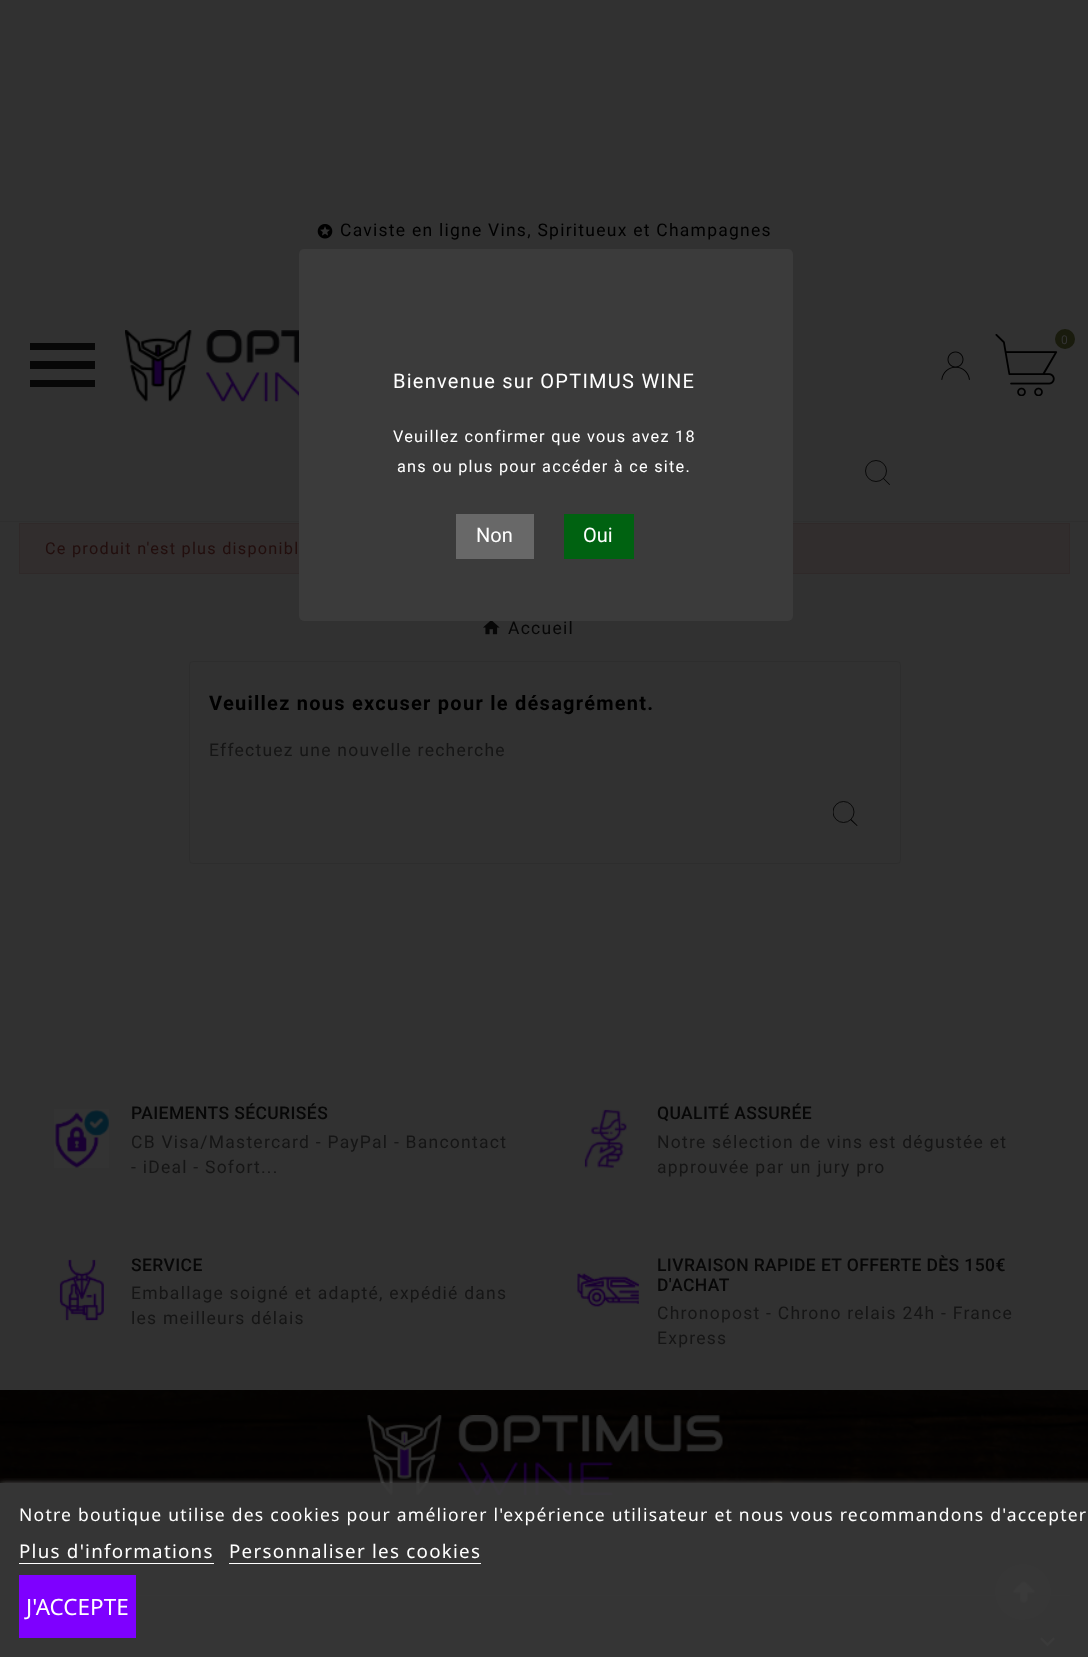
<?xml version="1.0" encoding="UTF-8"?>
<svg xmlns="http://www.w3.org/2000/svg" width="1088" height="1657">
    <defs>
        <clipPath id="clip1"><rect x="833" y="800" width="25" height="28"/></clipPath>
        <clipPath id="clip2"><rect x="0" y="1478" width="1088" height="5"/></clipPath>
        <filter id="blur1" x="-50%" y="-200%" width="200%" height="500%"><feGaussianBlur stdDeviation="3"/></filter>
    </defs>
    <rect width="100%" height="100%" fill="#313131"/>
    <rect x="0" y="521" width="1088" height="1" fill="#2E2E2E"/>
    <image x="317" y="224" width="16" height="15" href="img_01.png"/>
    <text x="340" y="236" font-family="Roboto" font-size="17.5" letter-spacing="1.25" fill="#000000">Caviste en ligne Vins, Spiritueux et Champagnes</text>
    <image x="125" y="330" width="174" height="72" href="img_02.png"/>
    <image x="995" y="334" width="63" height="62" href="img_03.png"/>
    <circle cx="1065" cy="339" r="10" fill="#191B0D"/>
    <text x="1061" y="344" font-family="Roboto" font-size="12" letter-spacing="1.25" fill="#333333">0</text>
    <image x="941" y="351" width="29" height="29" href="img_04.png"/>
    <path d="M 30 343 H 95 V 350 H 30 Z M 30 369 V 361 H 95 V 369 Z M 30 387 V 380 H 95 V 387 Z" fill="#070707"/>
    <path d="M 889.5 485 L 883 478.5 L 883.5 478 L 890 484.5 Z" fill="#000000"/>
    <circle cx="876" cy="471" r="10.5" fill="none" stroke="#000000" stroke-width="0.8"/>
    <rect x="19.5" y="523.5" width="1050" height="50" fill="#312D2D" stroke="#2F2929"/>
    <text x="45" y="554" font-family="Roboto" font-size="16.25" letter-spacing="1.25" fill="#220E0D">Ce produit n'est plus disponibl</text>
    <image x="483" y="621" width="17" height="14" href="img_05.png"/>
    <text x="508" y="634" font-family="Roboto" font-size="17.5" letter-spacing="1.25" fill="#070707">Accueil</text>
    <rect x="189.5" y="661.5" width="711" height="202" rx="3.5" fill="none" stroke="#000000" stroke-opacity="0.07"/>
    <text x="209" y="710" font-family="Roboto" font-size="20" font-weight="700" letter-spacing="1.25" fill="#000000">Veuillez nous excuser pour le désagrément.</text>
    <text x="209" y="756" font-family="Roboto" font-size="17.5" letter-spacing="1.25" fill="#151515">Effectuez une nouvelle recherche</text>
    <path d="M 857 826 L 850.5 820 L 851 819 L 857.5 825.5 Z" fill="#000000"/>
    <g clip-path="url(#clip1)">
        <circle cx="843.5" cy="812" r="10.5" fill="none" stroke="#000000" stroke-width="0.8"/>
    </g>
    <image x="54" y="1109" width="55" height="59" href="img_06.png"/>
    <text x="131" y="1119" font-family="Roboto" font-size="17.5" font-weight="500" letter-spacing="0.4" fill="#070707">PAIEMENTS SÉCURISÉS</text>
    <text font-family="Roboto" font-size="17.5" letter-spacing="1.25" fill="#151515">
        <tspan x="131" y="1148">CB Visa/Mastercard - PayPal - Bancontact</tspan>
        <tspan x="131" y="1173">- iDeal - Sofort...</tspan>
    </text>
    <image x="584" y="1109" width="43" height="59" href="img_07.png"/>
    <text x="657" y="1119" font-family="Roboto" font-size="17.5" font-weight="500" letter-spacing="0.4" fill="#070707">QUALITÉ ASSURÉE</text>
    <text font-family="Roboto" font-size="17.5" letter-spacing="1.25" fill="#151515">
        <tspan x="657" y="1148">Notre sélection de vins est dégustée et</tspan>
        <tspan x="657" y="1173">approuvée par un jury pro</tspan>
    </text>
    <image x="59" y="1259" width="45" height="62" href="img_08.png"/>
    <text x="131" y="1271" font-family="Roboto" font-size="17.5" font-weight="500" letter-spacing="0.4" fill="#070707">SERVICE</text>
    <text font-family="Roboto" font-size="17.5" letter-spacing="1.25" fill="#151515">
        <tspan x="131" y="1299">Emballage soigné et adapté, expédié dans</tspan>
        <tspan x="131" y="1324">les meilleurs délais</tspan>
    </text>
    <image x="577" y="1273" width="62" height="34" href="img_09.png"/>
    <text font-family="Roboto" font-size="17.5" font-weight="500" letter-spacing="0.4" fill="#070707">
        <tspan x="657" y="1271">LIVRAISON RAPIDE ET OFFERTE DÈS 150€</tspan>
        <tspan x="657" y="1291">D'ACHAT</tspan>
    </text>
    <text font-family="Roboto" font-size="17.5" letter-spacing="1.25" fill="#151515">
        <tspan x="657" y="1319">Chronopost - Chrono relais 24h - France</tspan>
        <tspan x="657" y="1344">Express</tspan>
    </text>
    <image x="0" y="1390" width="1088" height="267" href="img_10.png"/>
    <rect x="136" y="1595" width="934" height="1" fill="#303030" fill-opacity="0.2"/>
    <image x="367" y="1415" width="356" height="80" href="img_11.png"/>
    <rect x="19.5" y="1615.5" width="1050" height="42" fill="none" stroke="#333333" stroke-opacity="0.07"/>
    <circle cx="1023" cy="1592" r="28" fill="#0F0F0F"/>
    <image x="1012" y="1581" width="24" height="22" href="img_12.png"/>
    <image x="1040" y="1637" width="15" height="10" href="img_13.png"/>
    <g clip-path="url(#clip2)">
        <rect x="0" y="1484" width="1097" height="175" fill="#707070" filter="url(#blur1)"/>
    </g>
    <rect x="0" y="1483" width="1088" height="174" fill="#3B3B3B" fill-opacity="0.9"/>
    <text x="19" y="1521" font-family="Noto Sans" font-size="17.5" letter-spacing="1.25" fill="#FFFFFF">Notre boutique utilise des cookies pour améliorer l'expérience utilisateur et nous vous recommandons d'accepter</text>
    <text x="19" y="1558" font-family="Noto Sans" font-size="18.75" letter-spacing="1.25" fill="#FFFFFF">Plus d'informations</text>
    <rect x="19" y="1563" width="195" height="1" fill="#FFFFFF"/>
    <text x="229" y="1558" font-family="Noto Sans" font-size="18.75" letter-spacing="1.25" fill="#FFFFFF">Personnaliser les cookies</text>
    <rect x="229" y="1563" width="252" height="1" fill="#FFFFFF"/>
    <rect x="19" y="1575" width="117" height="63" fill="#7E00FF"/>
    <text x="26" y="1615" font-family="Noto Sans" font-size="22.5" fill="#FFFFFF">J'ACCEPTE</text>
    <rect x="299" y="249" width="494" height="372" rx="5" fill="#3B3B3B"/>
    <text x="393" y="388" font-family="Roboto" font-size="20" letter-spacing="1.25" fill="#FFFFFF">Bienvenue sur OPTIMUS WINE</text>
    <text x="393" y="442" font-family="Roboto" font-size="16.25" letter-spacing="1.25" fill="#FFFFFF">Veuillez confirmer que vous avez 18</text>
    <text x="397" y="472" font-family="Roboto" font-size="16.25" letter-spacing="1.25" fill="#FFFFFF">ans ou plus pour accéder à ce site.</text>
    <rect x="456" y="514" width="78" height="45" fill="#686868"/>
    <text x="476" y="542" font-family="Roboto" font-size="20" fill="#FFFFFF">Non</text>
    <rect x="564" y="514" width="70" height="45" fill="#006211"/>
    <text x="583" y="542" font-family="Roboto" font-size="20" fill="#FFFFFF">Oui</text>
</svg>
